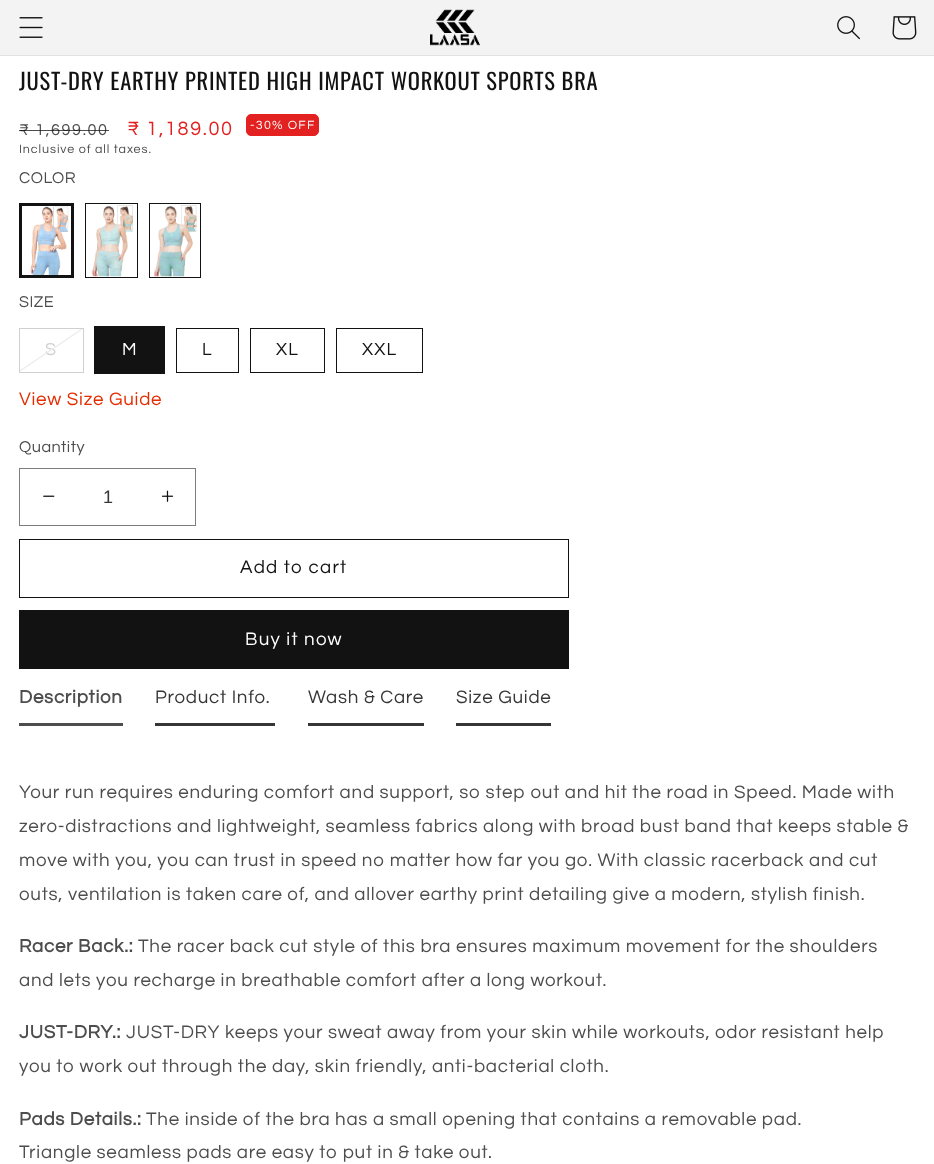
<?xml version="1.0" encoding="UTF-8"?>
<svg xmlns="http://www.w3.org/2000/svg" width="934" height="1164">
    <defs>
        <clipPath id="clip1"><rect x="20" y="329" width="63" height="42"/></clipPath>
    </defs>
    <rect width="100%" height="100%" fill="#FFFFFF"/>
    <rect x="0" y="0" width="934" height="55" fill="#F3F3F3"/>
    <rect x="0" y="55" width="934" height="1" fill="#E1E1E1"/>
    <image x="19" y="17" width="24" height="21" href="img_01.png"/>
    <image x="430" y="9" width="50" height="37" href="img_02.png"/>
    <image x="837" y="16" width="23" height="24" href="img_03.png"/>
    <image x="892" y="16" width="25" height="24" href="img_04.png"/>
    <text x="19" y="90" font-family="Oswald" font-size="22.5" letter-spacing="0.75" fill="#121212">JUST-DRY EARTHY PRINTED HIGH IMPACT WORKOUT SPORTS BRA</text>
    <text x="19" y="135" font-family="Questrial" font-size="16.25" letter-spacing="1.6" fill="#4D4D4D">₹ 1,699.00</text>
    <rect x="19" y="130" width="90" height="1" fill="#121212" fill-opacity="0.75"/>
    <text x="127" y="135" font-family="Questrial" font-size="20" letter-spacing="1.6" fill="#E22120">₹ 1,189.00</text>
    <rect x="246.5" y="114.5" width="72" height="21" rx="4.5" fill="#E22120" stroke="#E22120"/>
    <text x="250" y="129" font-family="Questrial" font-size="12.5" letter-spacing="1.25" fill="#FFFFFF">-30% OFF</text>
    <text x="19" y="153" font-family="Questrial" font-size="12.5" letter-spacing="0.9" fill="#4D4D4D">Inclusive of all taxes.</text>
    <text x="19" y="183" font-family="Questrial" font-size="16.25" letter-spacing="0.5" fill="#4D4D4D">COLOR</text>
    <image x="30" y="206" width="39" height="69" href="img_05.png"/>
    <rect x="20.5" y="204.5" width="52" height="72" fill="none" stroke="#121212" stroke-width="3"/>
    <image x="91" y="205" width="42" height="72" href="img_06.png"/>
    <rect x="85.5" y="203.5" width="52" height="74" fill="none" stroke="#121212"/>
    <image x="154" y="205" width="43" height="72" href="img_07.png"/>
    <rect x="149.5" y="203.5" width="51" height="74" fill="none" stroke="#121212"/>
    <text x="19" y="307" font-family="Questrial" font-size="16.25" letter-spacing="0.5" fill="#4D4D4D">SIZE</text>
    <rect x="19.5" y="328.5" width="64" height="44" fill="none" stroke="#D0D0D0"/>
    <text x="45" y="355" font-family="Questrial" font-size="18" letter-spacing="1.25" fill="#D0D0D0">S</text>
    <g clip-path="url(#clip1)">
        <path d="M 20 371 L 82 329" fill="none" stroke="#EBEBEB" stroke-width="1.2"/>
    </g>
    <rect x="94" y="326" width="71" height="48" fill="#121212"/>
    <text x="122" y="355" font-family="Questrial" font-size="18" letter-spacing="1.25" fill="#FFFFFF">M</text>
    <rect x="176.5" y="328.5" width="62" height="44" fill="none" stroke="#121212"/>
    <text x="202" y="355" font-family="Questrial" font-size="18" letter-spacing="1.25" fill="#121212">L</text>
    <rect x="250.5" y="328.5" width="74" height="44" fill="none" stroke="#121212"/>
    <text x="276" y="355" font-family="Questrial" font-size="18" letter-spacing="1.25" fill="#121212">XL</text>
    <rect x="336.5" y="328.5" width="86" height="44" fill="none" stroke="#121212"/>
    <text x="362" y="355" font-family="Questrial" font-size="18" letter-spacing="1.25" fill="#121212">XXL</text>
    <text x="19" y="405" font-family="Questrial" font-size="18.75" letter-spacing="0.75" fill="#E42C00">View Size Guide</text>
    <text x="19" y="452" font-family="Questrial" font-size="16.25" letter-spacing="0.5" fill="#4D4D4D">Quantity</text>
    <image x="43" y="495" width="12" height="2" href="img_08.png"/>
    <image x="161" y="490" width="13" height="12" href="img_09.png"/>
    <rect x="19.5" y="468.5" width="176" height="57" fill="none" stroke="#7D7D7D"/>
    <text x="103" y="503" font-family="Liberation Sans" font-size="18" fill="#363636">1</text>
    <rect x="19.5" y="539.5" width="549" height="58" fill="none" stroke="#121212"/>
    <text x="240" y="573" font-family="Questrial" font-size="18.75" letter-spacing="1.25" fill="#121212">Add to cart</text>
    <rect x="19" y="610" width="550" height="59" fill="#121212"/>
    <text x="245" y="645" font-family="Questrial" font-size="18.75" letter-spacing="1.25" fill="#FFFFFF">Buy it now</text>
    <rect x="19" y="723" width="104" height="3" fill="#4D4D4D"/>
    <text x="19" y="703" font-family="Questrial" font-size="18.75" font-weight="700" letter-spacing="0.75" fill="#4D4D4D">Description</text>
    <rect x="155" y="723" width="120" height="3" fill="#363636"/>
    <text x="155" y="703" font-family="Questrial" font-size="18.75" letter-spacing="0.75" fill="#363636">Product Info.</text>
    <rect x="308" y="723" width="116" height="3" fill="#363636"/>
    <text x="308" y="703" font-family="Questrial" font-size="18.75" letter-spacing="0.75" fill="#363636">Wash &amp; Care</text>
    <rect x="456" y="723" width="95" height="3" fill="#363636"/>
    <text x="456" y="703" font-family="Questrial" font-size="18.75" letter-spacing="0.75" fill="#363636">Size Guide</text>
    <text font-family="Questrial" font-size="18.75" letter-spacing="0.75" fill="#4D4D4D">
        <tspan x="19" y="798">Your run requires enduring comfort and support, so step out and hit the road in Speed. Made with</tspan>
        <tspan x="19" y="832">zero-distractions and lightweight, seamless fabrics along with broad bust band that keeps stable &amp;</tspan>
        <tspan x="19" y="866">move with you, you can trust in speed no matter how far you go. With classic racerback and cut</tspan>
        <tspan x="19" y="900">outs, ventilation is taken care of, and allover earthy print detailing give a modern, stylish finish.</tspan>
    </text>
    <text x="19" y="952" font-family="Questrial" font-size="18.75" font-weight="700" letter-spacing="0.75" fill="#4D4D4D">Racer Back.:</text>
    <text x="138" y="952" font-family="Questrial" font-size="18.75" letter-spacing="0.75" fill="#4D4D4D">The racer back cut style of this bra ensures maximum movement for the shoulders</text>
    <text x="19" y="986" font-family="Questrial" font-size="18.75" letter-spacing="0.75" fill="#4D4D4D">and lets you recharge in breathable comfort after a long workout.</text>
    <text x="19" y="1038" font-family="Questrial" font-size="18.75" font-weight="700" letter-spacing="0.75" fill="#4D4D4D">JUST-DRY.:</text>
    <text x="126" y="1038" font-family="Questrial" font-size="18.75" letter-spacing="0.75" fill="#4D4D4D">JUST-DRY keeps your sweat away from your skin while workouts, odor resistant help</text>
    <text x="19" y="1072" font-family="Questrial" font-size="18.75" letter-spacing="0.75" fill="#4D4D4D">you to work out through the day, skin friendly, anti-bacterial cloth.</text>
    <text x="19" y="1125" font-family="Questrial" font-size="18.75" font-weight="700" letter-spacing="0.75" fill="#4D4D4D">Pads Details.:</text>
    <text x="146" y="1125" font-family="Questrial" font-size="18.75" letter-spacing="0.75" fill="#4D4D4D">The inside of the bra has a small opening that contains a removable pad.</text>
    <text x="19" y="1158" font-family="Questrial" font-size="18.75" letter-spacing="0.75" fill="#4D4D4D">Triangle seamless pads are easy to put in &amp; take out.</text>
</svg>
